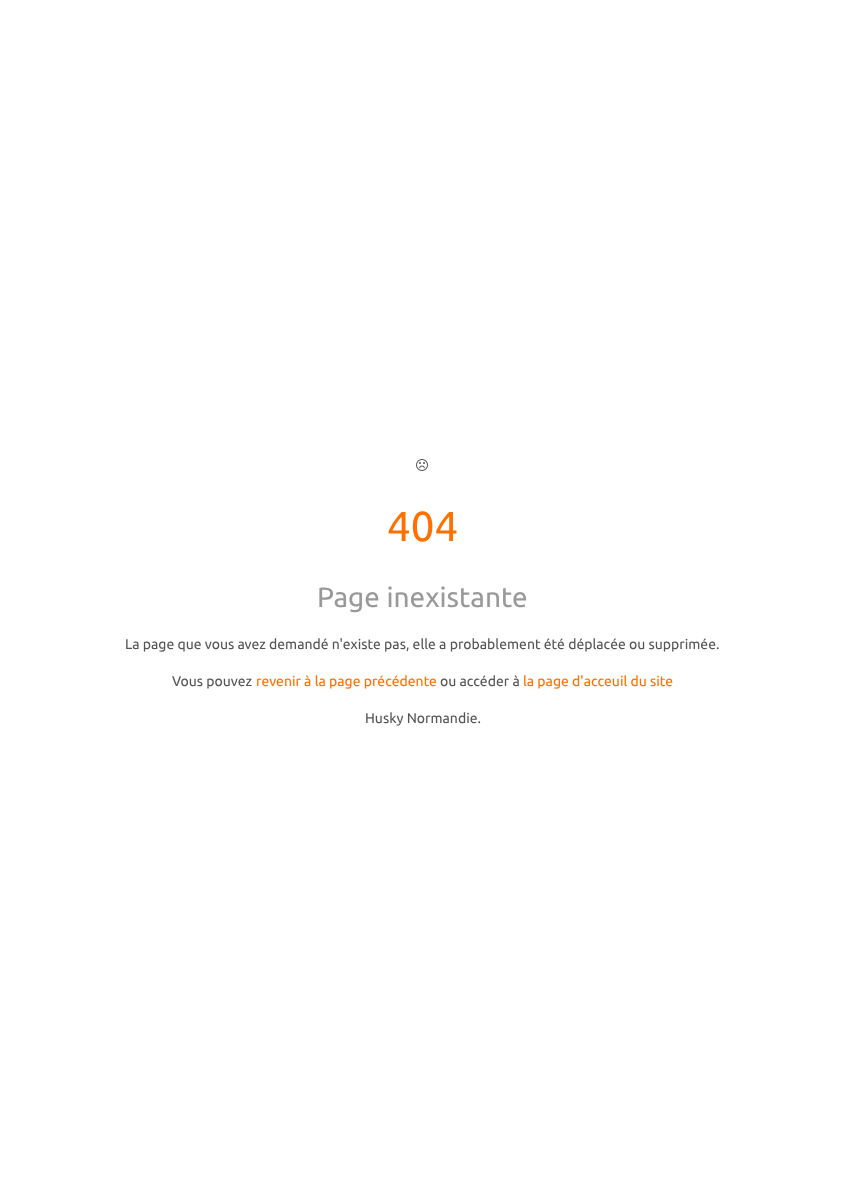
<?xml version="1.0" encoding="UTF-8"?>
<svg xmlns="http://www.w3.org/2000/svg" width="845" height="1197">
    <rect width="100%" height="100%" fill="#FFFFFF"/>
    <image x="416" y="459" width="12" height="12" href="img_01.png"/>
    <text x="387" y="541" font-family="Ubuntu" font-size="42" fill="#FF7000">404</text>
    <text x="317" y="607" font-family="Ubuntu" font-size="28" fill="#999999">Page inexistante</text>
    <text x="125" y="649" font-family="Ubuntu" font-size="14" fill="#555555">La page que vous avez demandé n'existe pas, elle a probablement été déplacée ou supprimée.</text>
    <text x="172" y="686" font-family="Ubuntu" font-size="14" fill="#555555">Vous pouvez</text>
    <text x="256" y="686" font-family="Ubuntu" font-size="14" fill="#FF7000">revenir à la page précédente</text>
    <text x="440" y="686" font-family="Ubuntu" font-size="14" fill="#555555">ou accéder à</text>
    <text x="523" y="686" font-family="Ubuntu" font-size="14" fill="#FF7000">la page d'acceuil du site</text>
    <text x="365" y="723" font-family="Ubuntu" font-size="14" fill="#555555">Husky Normandie.</text>
</svg>
